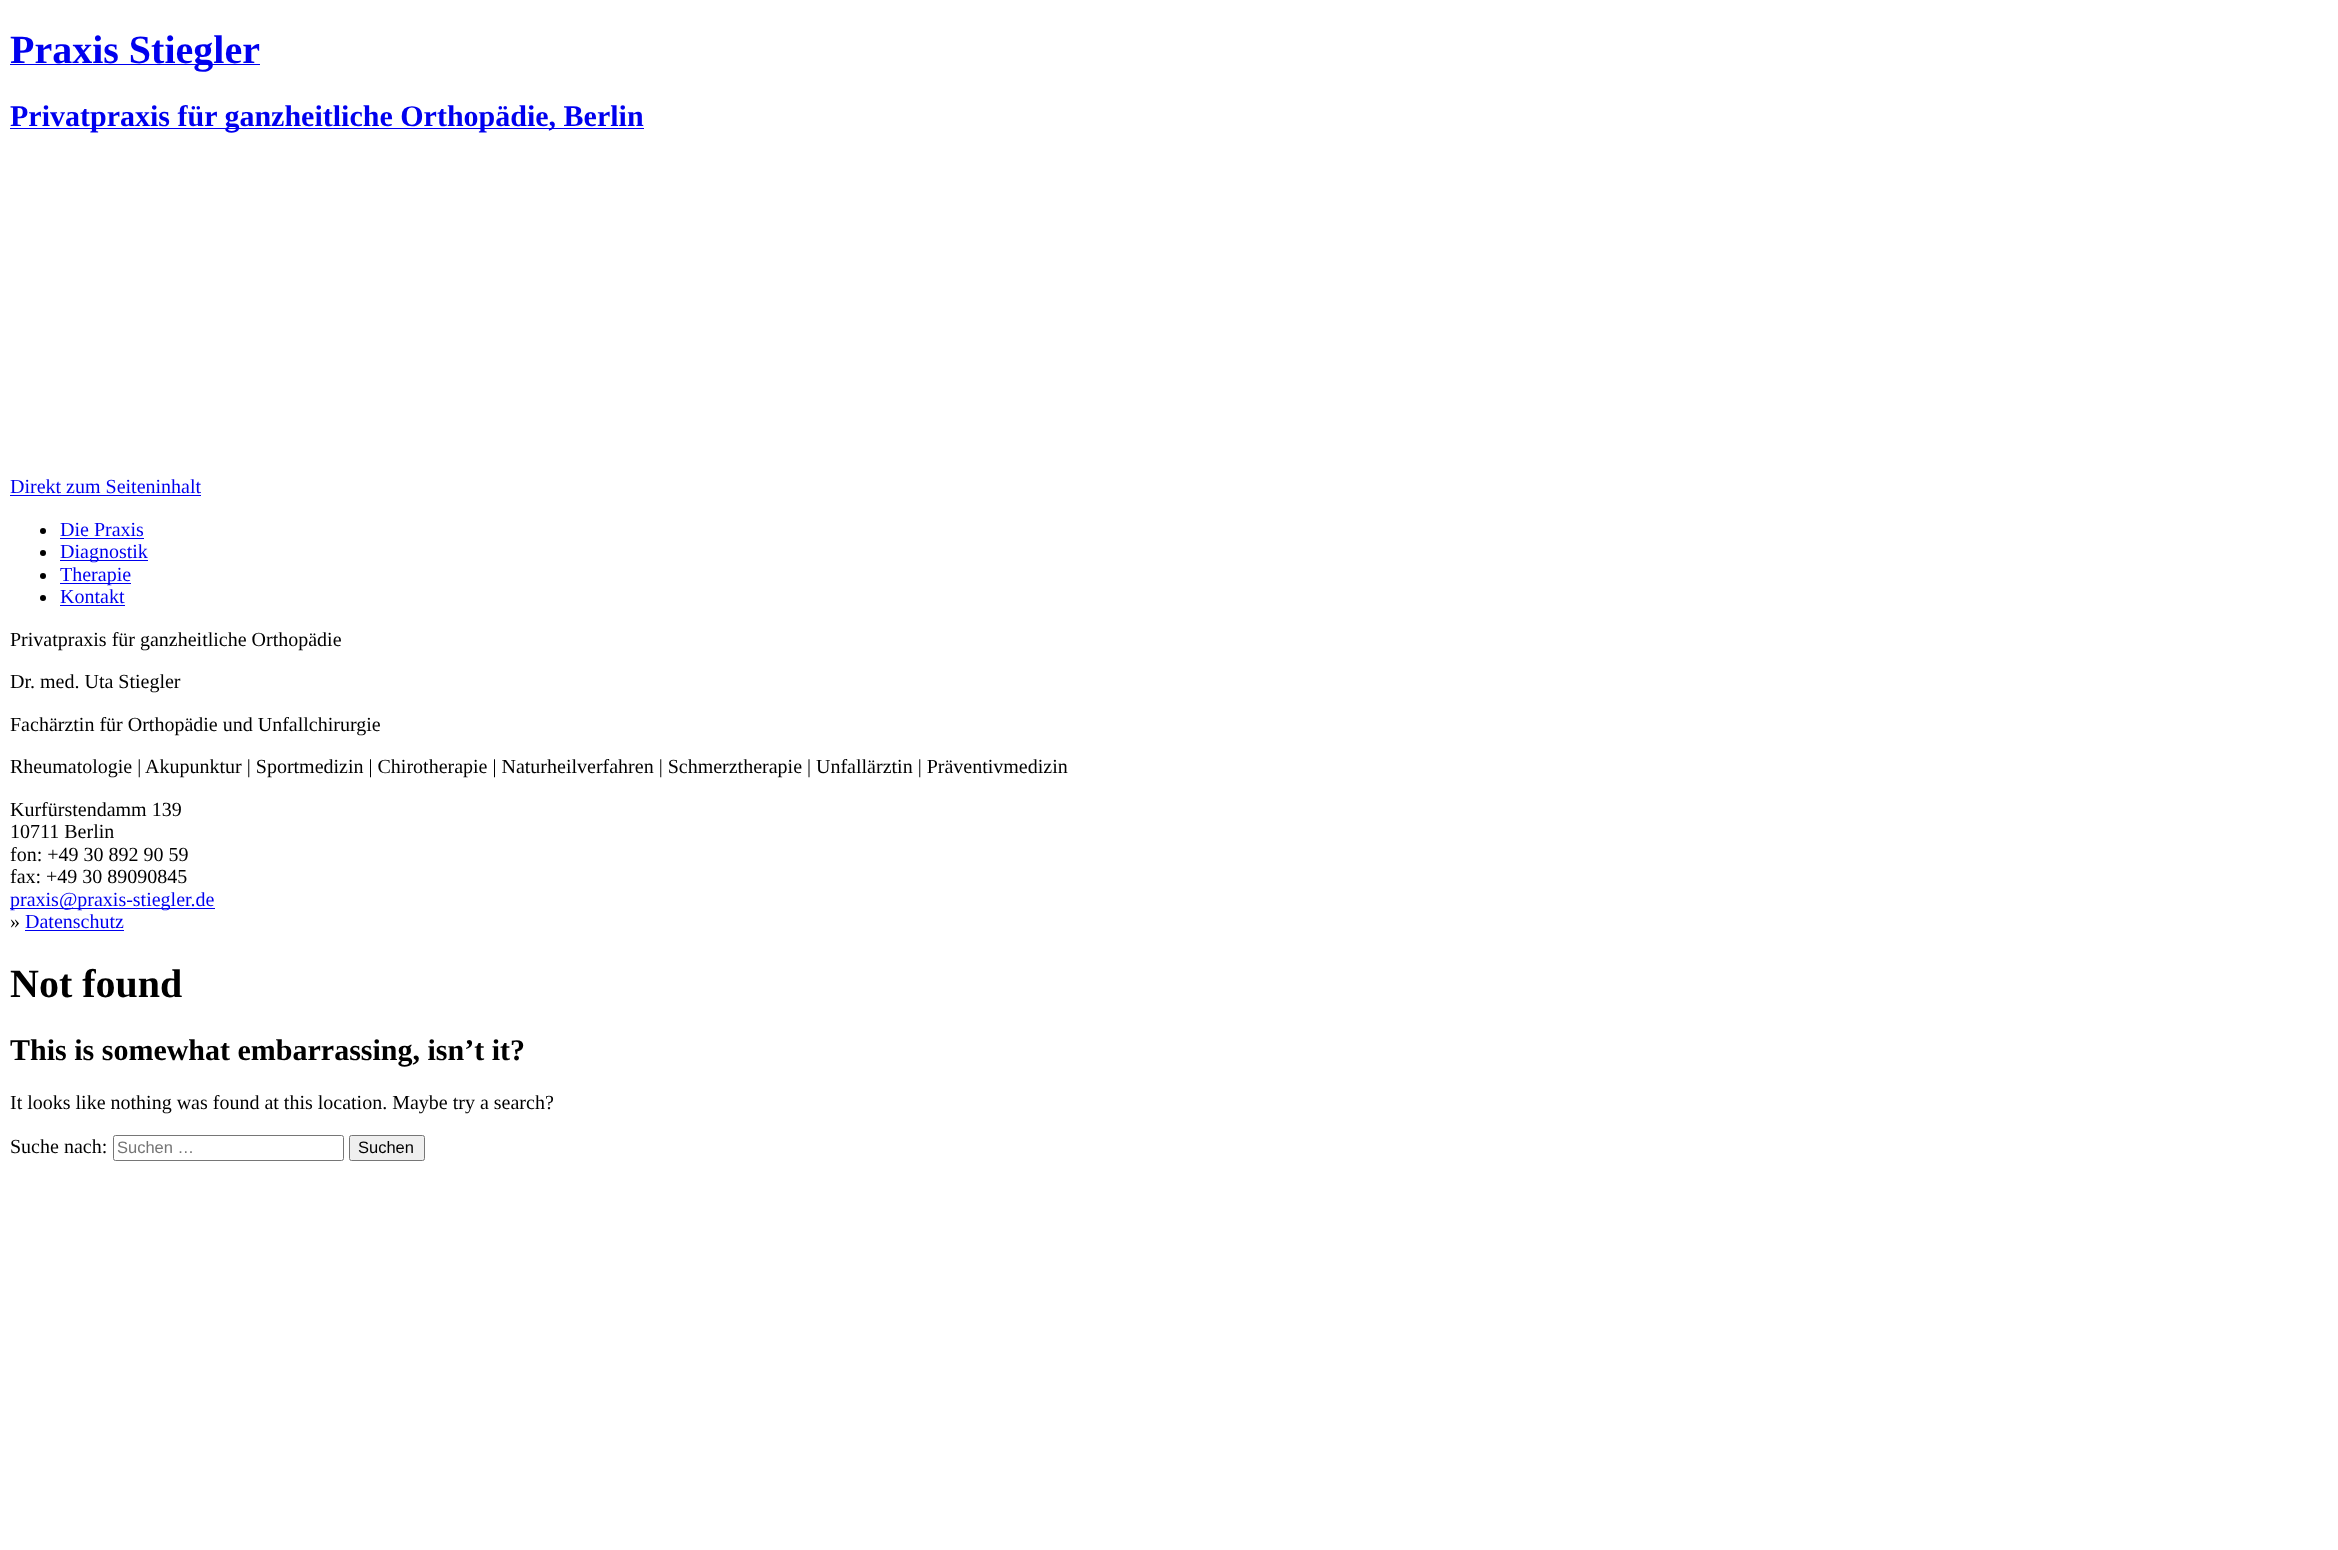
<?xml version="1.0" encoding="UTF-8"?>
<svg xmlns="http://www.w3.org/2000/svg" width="2338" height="1550">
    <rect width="100%" height="100%" fill="#FFFFFF"/>
    <rect x="10" y="64" width="250" height="1" fill="#0000EE"/>
    <text x="10" y="63" font-family="Liberation Serif" font-size="40" font-weight="700" fill="#0000EE">Praxis Stiegler</text>
    <rect x="10" y="128" width="634" height="1" fill="#0000EE"/>
    <text x="10" y="126" font-family="Liberation Serif" font-size="30" font-weight="700" fill="#0000EE">Privatpraxis für ganzheitliche Orthopädie, Berlin</text>
    <text x="10" y="493" font-family="Liberation Serif" font-size="20" fill="#0000EE">Direkt zum Seiteninhalt</text>
    <rect x="10" y="495" width="191" height="1" fill="#0000EE"/>
    <circle cx="43" cy="531" r="3" fill="#000000"/>
    <text x="60" y="536" font-family="Liberation Serif" font-size="20" fill="#0000EE">Die Praxis</text>
    <rect x="60" y="538" width="84" height="1" fill="#0000EE"/>
    <circle cx="43" cy="553" r="3" fill="#000000"/>
    <rect x="60" y="560" width="88" height="1" fill="#0000EE"/>
    <text x="60" y="558" font-family="Liberation Serif" font-size="20" fill="#0000EE">Diagnostik</text>
    <circle cx="43" cy="576" r="3" fill="#000000"/>
    <rect x="60" y="583" width="71" height="1" fill="#0000EE"/>
    <text x="60" y="581" font-family="Liberation Serif" font-size="20" fill="#0000EE">Therapie</text>
    <circle cx="43" cy="598" r="3" fill="#000000"/>
    <text x="60" y="603" font-family="Liberation Serif" font-size="20" fill="#0000EE">Kontakt</text>
    <rect x="60" y="605" width="65" height="1" fill="#0000EE"/>
    <text x="10" y="646" font-family="Liberation Serif" font-size="20" fill="#000000">Privatpraxis für ganzheitliche Orthopädie</text>
    <text x="10" y="688" font-family="Liberation Serif" font-size="20" fill="#000000">Dr. med. Uta Stiegler</text>
    <text x="10" y="731" font-family="Liberation Serif" font-size="20" fill="#000000">Fachärztin für Orthopädie und Unfallchirurgie</text>
    <text x="10" y="773" font-family="Liberation Serif" font-size="20" fill="#000000">Rheumatologie | Akupunktur | Sportmedizin | Chirotherapie | Naturheilverfahren | Schmerztherapie | Unfallärztin | Präventivmedizin</text>
    <text font-family="Liberation Serif" font-size="20" fill="#000000">
        <tspan x="10" y="816">Kurfürstendamm 139</tspan>
        <tspan x="10" y="838">10711 Berlin</tspan>
        <tspan x="10" y="861">fon: +49 30 892 90 59</tspan>
        <tspan x="10" y="883">fax: +49 30 89090845</tspan>
    </text>
    <rect x="10" y="908" width="205" height="1" fill="#0000EE"/>
    <text x="10" y="906" font-family="Liberation Serif" font-size="20" fill="#0000EE">praxis@praxis-stiegler.de</text>
    <text x="10" y="928" font-family="Liberation Serif" font-size="20" fill="#000000">»</text>
    <text x="25" y="928" font-family="Liberation Serif" font-size="20" fill="#0000EE">Datenschutz</text>
    <rect x="25" y="930" width="99" height="1" fill="#0000EE"/>
    <text x="10" y="997" font-family="Liberation Serif" font-size="40" font-weight="700" fill="#000000">Not found</text>
    <text x="10" y="1060" font-family="Liberation Serif" font-size="30" font-weight="700" fill="#000000">This is somewhat embarrassing, isn’t it?</text>
    <text x="10" y="1109" font-family="Liberation Serif" font-size="20" fill="#000000">It looks like nothing was found at this location. Maybe try a search?</text>
    <text x="10" y="1153" font-family="Liberation Serif" font-size="20" fill="#000000">Suche nach:</text>
    <rect x="113.5" y="1135.5" width="230" height="25" rx="2" fill="none" stroke="#767676"/>
    <text x="117" y="1153" font-family="Liberation Sans" font-size="16.5" fill="#757575">Suchen …</text>
    <rect x="349.5" y="1135.5" width="75" height="25" rx="2" fill="#EFEFEF" stroke="#767676"/>
    <text x="358" y="1153" font-family="Liberation Sans" font-size="16.5" fill="#000000">Suchen</text>
</svg>
